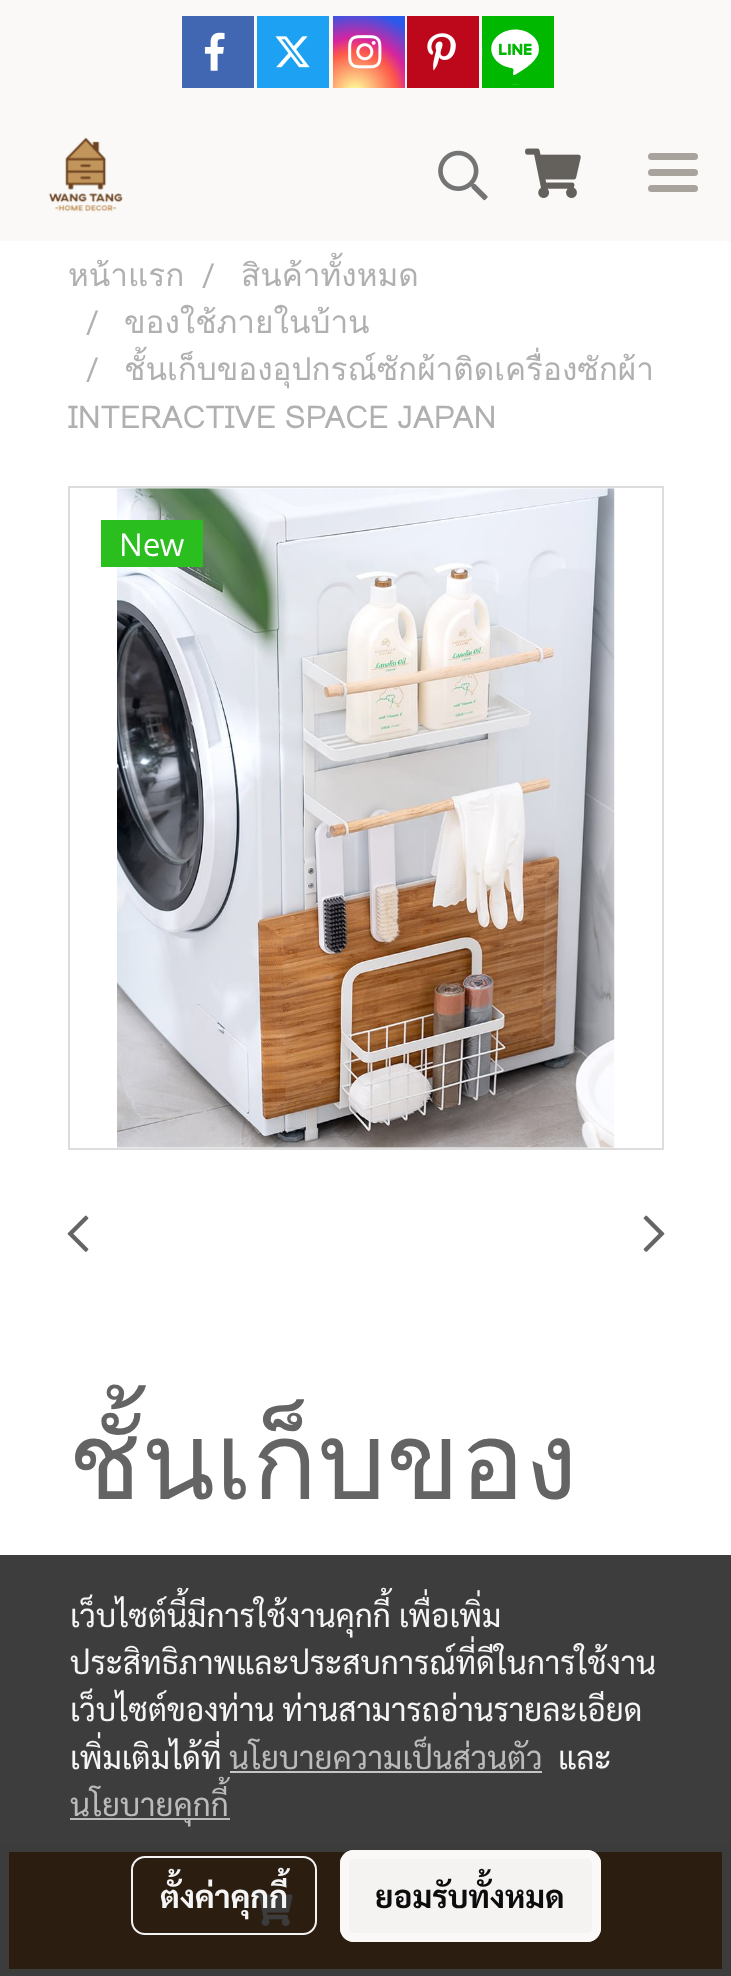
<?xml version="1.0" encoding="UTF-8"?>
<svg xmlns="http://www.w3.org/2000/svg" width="731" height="1976">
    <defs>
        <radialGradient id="g1" gradientUnits="userSpaceOnUse" cx="355" cy="93" r="92"><stop offset="0" stop-color="#FDF497"/><stop offset="0.05" stop-color="#FDF497"/><stop offset="0.45" stop-color="#FD5949"/><stop offset="0.6" stop-color="#D6249F"/><stop offset="0.9" stop-color="#285AEB"/></radialGradient>
    </defs>
    <rect width="100%" height="100%" fill="#FFFFFF"/>
    <rect x="0" y="0" width="731" height="241" fill="#FAF9F8"/>
    <rect x="182" y="16" width="72" height="72" fill="#4267B2"/>
    <image x="204" y="32" width="21" height="39" href="img_01.png"/>
    <rect x="257" y="16" width="72" height="72" fill="#1DA1F2"/>
    <image x="275" y="36" width="35" height="32" href="img_02.png"/>
    <rect x="333" y="16" width="72" height="72" fill="url(#g1)"/>
    <image x="348" y="35" width="34" height="34" href="img_03.png"/>
    <rect x="407" y="16" width="72" height="72" fill="#BD081C"/>
    <image x="427" y="33" width="29" height="38" href="img_04.png"/>
    <rect x="482" y="16" width="72" height="72" fill="#00B800"/>
    <image x="482" y="29" width="57" height="56" href="img_05.png"/>
    <image x="48" y="137" width="75" height="75" href="img_06.png"/>
    <image x="438" y="150" width="50" height="51" href="img_07.png"/>
    <image x="525" y="148" width="56" height="50" href="img_08.png"/>
    <rect x="648" y="169" width="50" height="7" rx="3.5" fill="#A8A39D"/>
    <rect x="648" y="153" width="50" height="7" rx="3.5" fill="#A8A39D"/>
    <rect x="648" y="185" width="50" height="7" rx="3.5" fill="#A8A39D"/>
    <text x="68" y="286" font-family="Loma" font-size="31.5" fill="#B0B0B0">หน้าแรก</text>
    <text x="202" y="286" font-family="Roboto" font-size="31.5" fill="#B0B0B0">/</text>
    <text x="241" y="286" font-family="Loma" font-size="31.5" fill="#B0B0B0">สินค้าทั้งหมด</text>
    <text x="86" y="333" font-family="Roboto" font-size="31.5" fill="#B0B0B0">/</text>
    <text x="124" y="333" font-family="Loma" font-size="31.5" fill="#B0B0B0">ของใช้ภายในบ้าน</text>
    <text x="86" y="380" font-family="Roboto" font-size="31.5" fill="#B0B0B0">/</text>
    <text x="124" y="380" font-family="Loma" font-size="31.5" fill="#B0B0B0">ชั้นเก็บของอุปกรณ์ซักผ้าติดเครื่องซักผ้า</text>
    <text x="68" y="428" word-spacing="-2" font-family="Loma" font-size="31.5" fill="#B0B0B0">INTERACTIVE SPACE JAPAN</text>
    <rect x="69" y="487" width="594" height="662" fill="none" stroke="#DDDDDD" stroke-width="2"/>
    <image x="117" y="488" width="498" height="660" href="img_09.png"/>
    <rect x="101" y="520" width="102" height="47" fill="#2BBE1F"/>
    <text x="119" y="556" font-family="Open Sans" font-size="31.5" fill="#FFFFFF">New</text>
    <image x="67" y="1215" width="22" height="37" href="img_10.png"/>
    <image x="643" y="1215" width="22" height="37" href="img_11.png"/>
    <text x="68" y="1499" font-family="Loma" font-size="108" fill="#646464">ชั้นเก็บของ</text>
    <rect x="4.5" y="1847.5" width="722" height="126" fill="#B27E48" stroke="#FAF9F8" stroke-width="9"/>
    <image x="252" y="1890" width="41" height="36" href="img_12.png"/>
    <rect x="0" y="1555" width="731" height="421" fill="#000000" fill-opacity="0.76"/>
    <text font-family="Sarabun" font-size="31.5" fill="#F5F5F5">
        <tspan x="70" y="1627">เว็บไซต์นี้มีการใช้งานคุกกี้ เพื่อเพิ่ม</tspan>
        <tspan x="70" y="1674">ประสิทธิภาพและประสบการณ์ที่ดีในการใช้งาน</tspan>
        <tspan x="70" y="1721">เว็บไซต์ของท่าน ท่านสามารถอ่านรายละเอียด</tspan>
        <tspan x="70" y="1769">เพิ่มเติมได้ที่</tspan>
    </text>
    <text x="229" y="1769" font-family="Sarabun" font-size="31.5" fill="#BBBBBB">นโยบายความเป็นส่วนตัว</text>
    <rect x="230" y="1771" width="312" height="2" fill="#C5C5C5"/>
    <text x="558" y="1769" font-family="Sarabun" font-size="31.5" fill="#F5F5F5">และ</text>
    <rect x="70" y="1818" width="160" height="2" fill="#C2C2C2" fill-opacity="0.95"/>
    <text x="70" y="1816" font-family="Sarabun" font-size="31.5" fill="#BBBBBB">นโยบายคุกกี้</text>
    <rect x="132" y="1857" width="184" height="77" rx="13" fill="none" stroke="#FFFFFF" stroke-opacity="0.95" stroke-width="2"/>
    <text x="160" y="1908" font-family="Sarabun" font-size="31.5" font-weight="700" fill="#F5F5F5">ตั้งค่าคุกกี้</text>
    <rect x="340" y="1850" width="261" height="92" rx="14" fill="#FFFFFF" fill-opacity="0.95"/>
    <rect x="344.5" y="1854.5" width="252" height="83" rx="9.5" fill="none" stroke="#FAF9F8" stroke-opacity="0.95" stroke-width="9"/>
    <text x="375" y="1908" font-family="Sarabun" font-size="31.5" font-weight="700" fill="#0C0C0C">ยอมรับทั้งหมด</text>
</svg>
